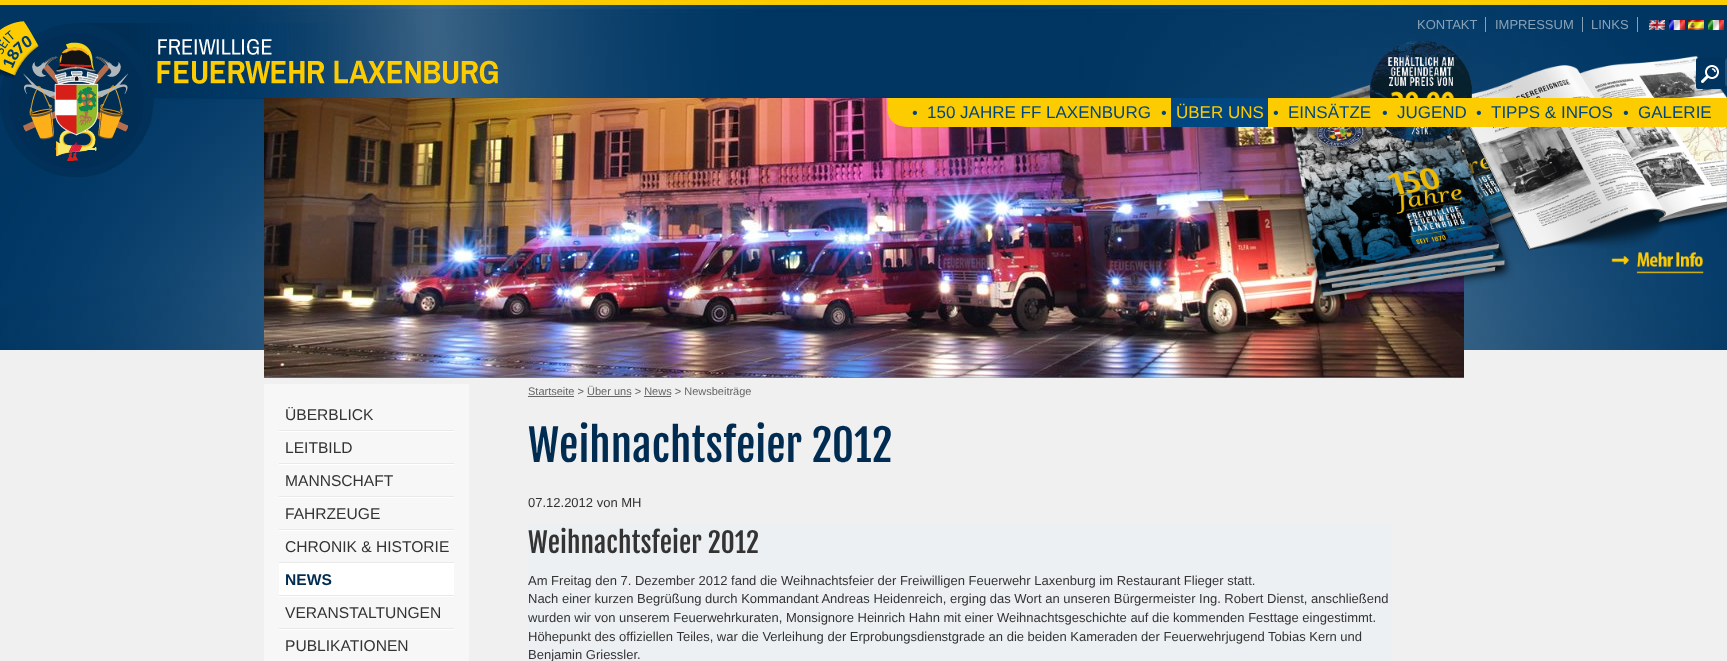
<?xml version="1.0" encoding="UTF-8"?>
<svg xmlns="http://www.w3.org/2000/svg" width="1727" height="661">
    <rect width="100%" height="100%" fill="#FFFFFF"/>
    <image x="0" y="0" width="1727" height="350" href="img_01.png"/>
    <rect x="0" y="350" width="1727" height="311" fill="#F0F0F0"/>
    <image x="264" y="98" width="1200" height="280" href="img_08.png"/>
    <image x="0" y="21" width="498" height="156" href="img_02.png"/>
    <text x="1417" y="29" font-family="Liberation Sans" font-size="13" fill="#88A1B6">KONTAKT</text>
    <rect x="1485" y="17" width="1" height="15" fill="#88A1B6"/>
    <text x="1495" y="29" font-family="Liberation Sans" font-size="13" fill="#88A1B6">IMPRESSUM</text>
    <rect x="1582" y="17" width="1" height="15" fill="#88A1B6"/>
    <text x="1591" y="29" font-family="Liberation Sans" font-size="13" fill="#88A1B6">LINKS</text>
    <rect x="1637" y="17" width="1" height="15" fill="#88A1B6"/>
    <image x="1649" y="20" width="16" height="10" href="img_03.png"/>
    <image x="1669" y="20" width="16" height="10" href="img_04.png"/>
    <image x="1688" y="20" width="16" height="10" href="img_05.png"/>
    <image x="1708" y="20" width="16" height="10" href="img_06.png"/>
    <image x="1289" y="40" width="438" height="265" href="img_11.png"/>
    <rect x="1696" y="58" width="31" height="31" rx="2" fill="#00345F"/>
    <image x="1701" y="65" width="18" height="18" href="img_07.png"/>
    <path d="M 1728 58 H 1725 C 1726 58 1727 59 1727 60 V 87 H 1728 C 1726.5 87 1725 85.5 1725 84 V 61 C 1725 59.5 1726.5 58 1728 58 Z" fill="#1F5079"/>
    <image x="887" y="98" width="840" height="29" href="img_09.png"/>
    <image x="912" y="110" width="5" height="5" href="img_10.png"/>
    <text x="927" y="118" font-family="Liberation Sans" font-size="17" fill="#004781">150 JAHRE FF LAXENBURG</text>
    <image x="1161" y="110" width="5" height="5" href="img_10.png"/>
    <rect x="1171" y="98" width="97" height="29" fill="#004781"/>
    <text x="1176" y="118" font-family="Liberation Sans" font-size="17" fill="#FCCC00">ÜBER UNS</text>
    <image x="1273" y="110" width="5" height="5" href="img_10.png"/>
    <text x="1288" y="118" font-family="Liberation Sans" font-size="17" fill="#004781">EINSÄTZE</text>
    <image x="1382" y="110" width="5" height="5" href="img_10.png"/>
    <text x="1397" y="118" font-family="Liberation Sans" font-size="17" fill="#004781">JUGEND</text>
    <image x="1476" y="110" width="5" height="5" href="img_10.png"/>
    <text x="1491" y="118" font-family="Liberation Sans" font-size="17" fill="#004781">TIPPS &amp; INFOS</text>
    <image x="1623" y="110" width="5" height="5" href="img_10.png"/>
    <text x="1638" y="118" font-family="Liberation Sans" font-size="17" fill="#004781">GALERIE</text>
    <rect x="264" y="384" width="205" height="277" fill="#F7F7F7"/>
    <image x="279" y="430" width="175" height="2" href="img_12.png"/>
    <text x="285" y="420" font-family="Liberation Sans" font-size="15.6" fill="#333333">ÜBERBLICK</text>
    <image x="279" y="463" width="175" height="2" href="img_12.png"/>
    <text x="285" y="453" font-family="Liberation Sans" font-size="15.6" fill="#333333">LEITBILD</text>
    <image x="279" y="496" width="175" height="2" href="img_12.png"/>
    <text x="285" y="486" font-family="Liberation Sans" font-size="15.6" fill="#333333">MANNSCHAFT</text>
    <image x="279" y="529" width="175" height="2" href="img_12.png"/>
    <text x="285" y="519" font-family="Liberation Sans" font-size="15.6" fill="#333333">FAHRZEUGE</text>
    <image x="279" y="562" width="175" height="2" href="img_12.png"/>
    <text x="285" y="552" font-family="Liberation Sans" font-size="15.6" fill="#333333">CHRONIK &amp; HISTORIE</text>
    <rect x="279" y="564" width="175" height="33" fill="#FFFFFF"/>
    <rect x="279" y="595" width="175" height="1" fill="#E9E9E9"/>
    <text x="285" y="585" font-family="Liberation Sans" font-size="15.6" font-weight="700" fill="#002C52">NEWS</text>
    <image x="279" y="628" width="175" height="2" href="img_12.png"/>
    <text x="285" y="618" font-family="Liberation Sans" font-size="15.6" fill="#333333">VERANSTALTUNGEN</text>
    <text x="285" y="651" font-family="Liberation Sans" font-size="15.6" fill="#333333">PUBLIKATIONEN</text>
    <rect x="528" y="396" width="46" height="1" fill="#666666"/>
    <text x="528" y="395" font-family="Liberation Sans" font-size="11" fill="#666666">Startseite &gt; Über uns &gt; News &gt; Newsbeiträge</text>
    <rect x="587" y="396" width="44" height="1" fill="#666666"/>
    <rect x="644" y="396" width="27" height="1" fill="#666666"/>
    <text x="528" y="462" font-family="Fjalla One" font-size="43" fill="#002C52">Weihnachtsfeier 2012</text>
    <text x="528" y="507" font-family="Liberation Sans" font-size="13" fill="#333333">07.12.2012 von MH</text>
    <rect x="528" y="523" width="864" height="138" fill="#EDF0F3"/>
    <text x="528" y="553" font-family="Fjalla One" font-size="27.25" fill="#333333">Weihnachtsfeier 2012</text>
    <text font-family="Liberation Sans" font-size="13" fill="#333333">
        <tspan x="528" y="585">Am Freitag den 7. Dezember 2012 fand die Weihnachtsfeier der Freiwilligen Feuerwehr Laxenburg im Restaurant Flieger statt.</tspan>
        <tspan x="528" y="603">Nach einer kurzen Begrüßung durch Kommandant Andreas Heidenreich, erging das Wort an unseren Bürgermeister Ing. Robert Dienst, anschließend</tspan>
        <tspan x="528" y="622">wurden wir von unserem Feuerwehrkuraten, Monsignore Heinrich Hahn mit einer Weihnachtsgeschichte auf die kommenden Festtage eingestimmt.</tspan>
        <tspan x="528" y="641">Höhepunkt des offiziellen Teiles, war die Verleihung der Erprobungsdienstgrade an die beiden Kameraden der Feuerwehrjugend Tobias Kern und</tspan>
        <tspan x="528" y="659">Benjamin Griessler.</tspan>
    </text>
</svg>
